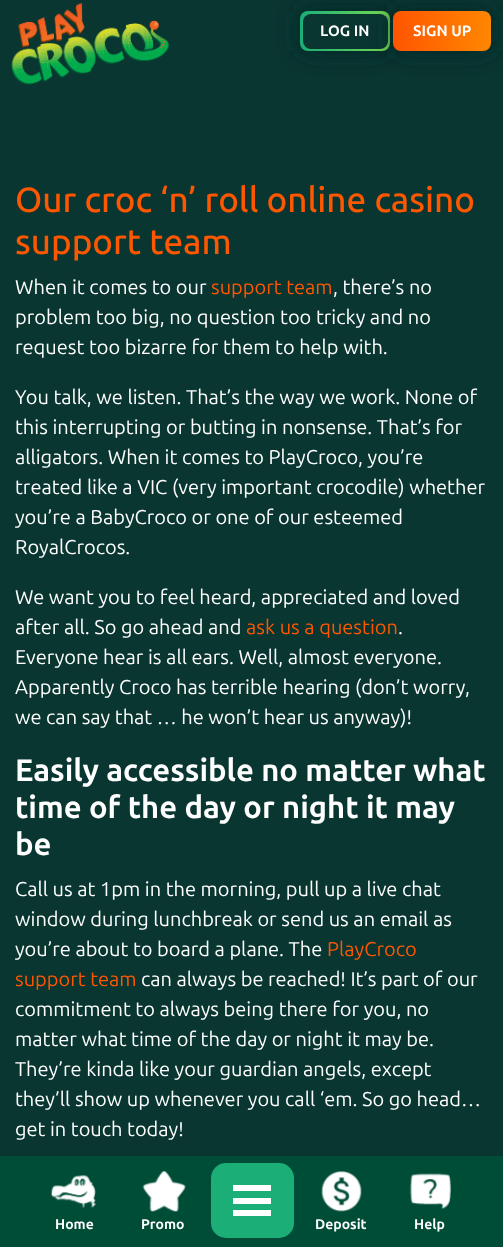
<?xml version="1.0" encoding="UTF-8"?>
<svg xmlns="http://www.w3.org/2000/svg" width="503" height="1247">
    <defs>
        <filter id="blur1" x="-50%" y="-200%" width="200%" height="500%"><feGaussianBlur stdDeviation="12.5"/></filter>
        <linearGradient id="g1" gradientUnits="userSpaceOnUse" x1="300" y1="31" x2="390" y2="31"><stop offset="0" stop-color="#1BAE77"/><stop offset="1" stop-color="#76DC52"/></linearGradient>
        <linearGradient id="g2" gradientUnits="userSpaceOnUse" x1="393" y1="31" x2="491" y2="31"><stop offset="0" stop-color="#FF5500"/><stop offset="1" stop-color="#FF8700"/></linearGradient>
    </defs>
    <rect width="100%" height="100%" fill="#093631"/>
    <image x="11" y="2" width="159" height="83" href="img_01.png"/>
    <rect x="300" y="11" width="90" height="40" rx="8" fill="#042826" filter="url(#blur1)"/>
    <rect x="300" y="11" width="90" height="40" rx="8" fill="url(#g1)"/>
    <rect x="303" y="14" width="85" height="35" rx="8" fill="#093631"/>
    <text x="320" y="36" font-family="Ubuntu" font-size="15" font-weight="700" fill="#FFFFFF">LOG IN</text>
    <rect x="393" y="11" width="98" height="40" rx="8" fill="#042826" filter="url(#blur1)"/>
    <rect x="393" y="11" width="98" height="40" rx="8" fill="url(#g2)"/>
    <text x="413" y="36" font-family="Ubuntu" font-size="15" font-weight="700" fill="#FFFFFF">SIGN UP</text>
    <text font-family="Ubuntu" font-size="35" font-weight="500" fill="#FF5700">
        <tspan x="15" y="212">Our croc ‘n’ roll online casino</tspan>
        <tspan x="15" y="254">support team</tspan>
    </text>
    <text x="15" y="294" font-family="Ubuntu" font-size="20" fill="#FFFFFF">When it comes to our</text>
    <text x="211" y="294" font-family="Ubuntu" font-size="20" fill="#FF5700">support team</text>
    <text x="333" y="294" font-family="Ubuntu" font-size="20" fill="#FFFFFF">, there’s no</text>
    <text font-family="Ubuntu" font-size="20" fill="#FFFFFF">
        <tspan x="15" y="324">problem too big, no question too tricky and no</tspan>
        <tspan x="15" y="354">request too bizarre for them to help with.</tspan>
    </text>
    <text font-family="Ubuntu" font-size="20" fill="#FFFFFF">
        <tspan x="15" y="404">You talk, we listen. That’s the way we work. None of</tspan>
        <tspan x="15" y="434">this interrupting or butting in nonsense. That’s for</tspan>
        <tspan x="15" y="464">alligators. When it comes to PlayCroco, you’re</tspan>
        <tspan x="15" y="494">treated like a VIC (very important crocodile) whether</tspan>
        <tspan x="15" y="524">you’re a BabyCroco or one of our esteemed</tspan>
        <tspan x="15" y="554">RoyalCrocos.</tspan>
    </text>
    <text font-family="Ubuntu" font-size="20" fill="#FFFFFF">
        <tspan x="15" y="604">We want you to feel heard, appreciated and loved</tspan>
        <tspan x="15" y="634">after all. So go ahead and</tspan>
    </text>
    <text x="246" y="634" font-family="Ubuntu" font-size="20" fill="#FF5700">ask us a question</text>
    <text x="398" y="634" font-family="Ubuntu" font-size="20" fill="#FFFFFF">.</text>
    <text font-family="Ubuntu" font-size="20" fill="#FFFFFF">
        <tspan x="15" y="664">Everyone hear is all ears. Well, almost everyone.</tspan>
        <tspan x="15" y="694">Apparently Croco has terrible hearing (don’t worry,</tspan>
        <tspan x="15" y="724">we can say that … he won’t hear us anyway)!</tspan>
    </text>
    <text font-family="Ubuntu" font-size="31" font-weight="700" fill="#FFFFFF">
        <tspan x="15" y="781">Easily accessible no matter what</tspan>
        <tspan x="15" y="818">time of the day or night it may</tspan>
        <tspan x="15" y="855">be</tspan>
    </text>
    <text font-family="Ubuntu" font-size="20" fill="#FFFFFF">
        <tspan x="15" y="896">Call us at 1pm in the morning, pull up a live chat</tspan>
        <tspan x="15" y="926">window during lunchbreak or send us an email as</tspan>
        <tspan x="15" y="956">you’re about to board a plane. The</tspan>
    </text>
    <text x="327" y="956" font-family="Ubuntu" font-size="20" fill="#FF5700">PlayCroco</text>
    <text x="15" y="986" font-family="Ubuntu" font-size="20" fill="#FF5700">support team</text>
    <text x="141" y="986" font-family="Ubuntu" font-size="20" fill="#FFFFFF">can always be reached! It’s part of our</text>
    <text font-family="Ubuntu" font-size="20" fill="#FFFFFF">
        <tspan x="15" y="1016">commitment to always being there for you, no</tspan>
        <tspan x="15" y="1046">matter what time of the day or night it may be.</tspan>
        <tspan x="15" y="1076">They’re kinda like your guardian angels, except</tspan>
        <tspan x="15" y="1106">they’ll show up whenever you call ‘em. So go head…</tspan>
        <tspan x="15" y="1136">get in touch today!</tspan>
    </text>
    <rect x="0" y="1156" width="503" height="91" fill="#004D37"/>
    <rect x="211" y="1163" width="83" height="75" rx="15" fill="#1BAE77"/>
    <rect x="233" y="1185" width="38" height="6" fill="#FFFFFF"/>
    <rect x="233" y="1198" width="38" height="6" fill="#FFFFFF"/>
    <rect x="233" y="1210" width="38" height="6" fill="#FFFFFF"/>
    <image x="50" y="1175" width="46" height="34" href="img_02.png"/>
    <text x="55" y="1229" font-family="Ubuntu" font-size="14" font-weight="700" fill="#FFFFFF">Home</text>
    <image x="142" y="1171" width="44" height="41" href="img_03.png"/>
    <text x="141" y="1229" font-family="Ubuntu" font-size="14" font-weight="700" fill="#FFFFFF">Promo</text>
    <image x="321" y="1171" width="41" height="41" href="img_04.png"/>
    <text x="315" y="1229" font-family="Ubuntu" font-size="14" font-weight="700" fill="#FFFFFF">Deposit</text>
    <image x="409" y="1173" width="42" height="37" href="img_05.png"/>
    <text x="414" y="1229" font-family="Ubuntu" font-size="14" font-weight="700" fill="#FFFFFF">Help</text>
</svg>
